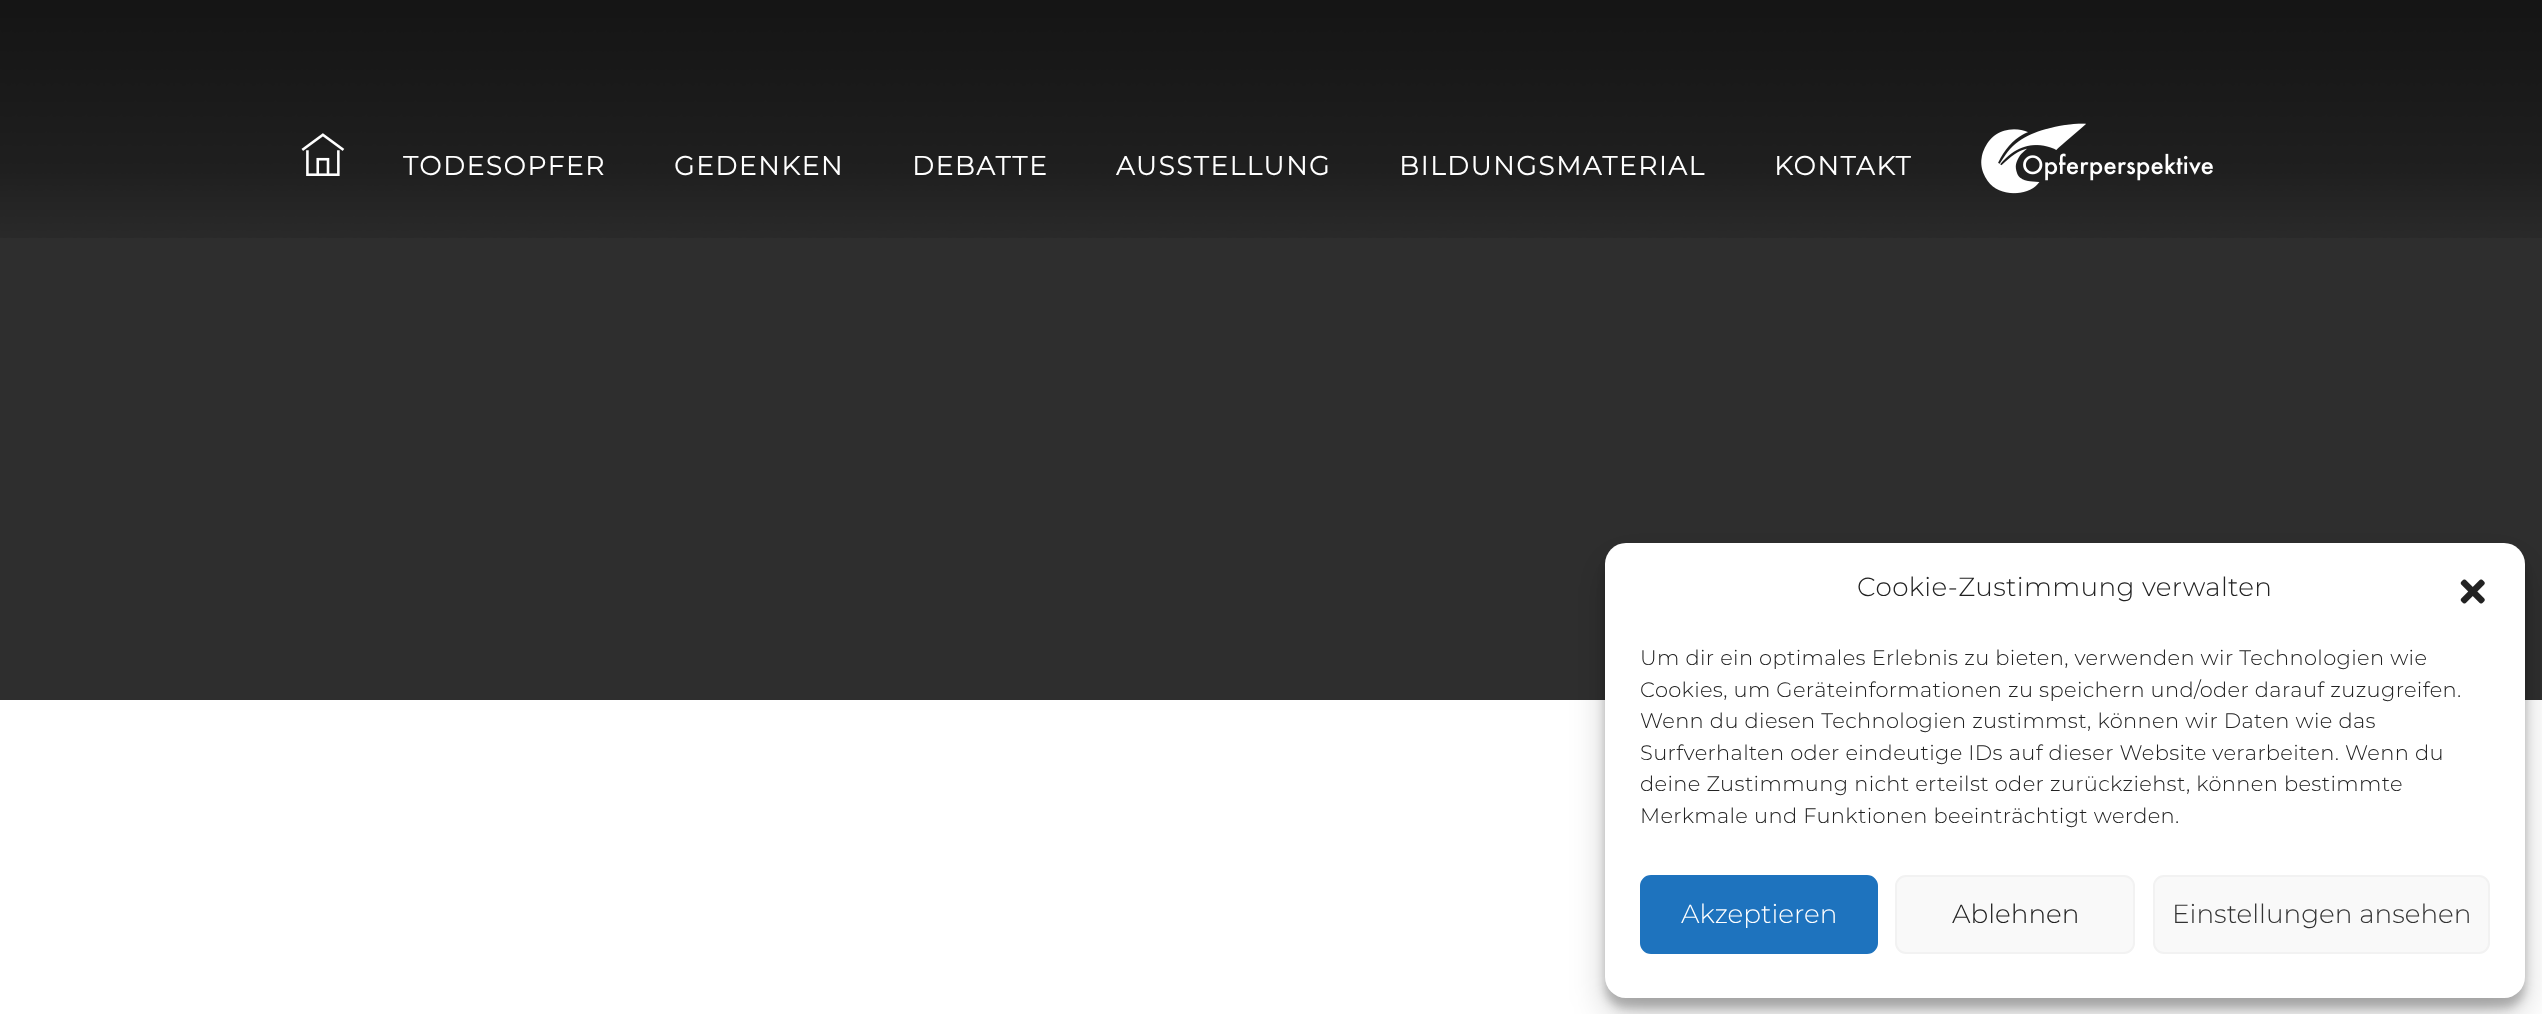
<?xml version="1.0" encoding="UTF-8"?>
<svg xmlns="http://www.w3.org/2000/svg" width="2542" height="1014">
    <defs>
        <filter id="blur1" x="-50%" y="-200%" width="200%" height="500%"><feGaussianBlur stdDeviation="5"/></filter>
        <filter id="blur2" x="-50%" y="-200%" width="200%" height="500%"><feGaussianBlur stdDeviation="17.5"/></filter>
    </defs>
    <rect width="100%" height="100%" fill="#2E2E2E"/>
    <image x="0" y="0" width="2542" height="238" href="img_01.png"/>
    <image x="301" y="133" width="44" height="43" href="img_02.png"/>
    <text x="403" y="175" font-family="Montserrat" font-size="26.25" font-weight="700" letter-spacing="1.75" fill="#FFFFFF">TODESOPFER</text>
    <text x="674" y="175" font-family="Montserrat" font-size="26.25" font-weight="700" letter-spacing="1.75" fill="#FFFFFF">GEDENKEN</text>
    <text x="912" y="175" font-family="Montserrat" font-size="26.25" font-weight="700" letter-spacing="1.75" fill="#FFFFFF">DEBATTE</text>
    <text x="1116" y="175" font-family="Montserrat" font-size="26.25" font-weight="700" letter-spacing="1.75" fill="#FFFFFF">AUSSTELLUNG</text>
    <text x="1399" y="175" font-family="Montserrat" font-size="26.25" font-weight="700" letter-spacing="1.75" fill="#FFFFFF">BILDUNGSMATERIAL</text>
    <text x="1774" y="175" font-family="Montserrat" font-size="26.25" font-weight="700" letter-spacing="1.75" fill="#FFFFFF">KONTAKT</text>
    <image x="1981" y="123" width="232" height="71" href="img_03.png"/>
    <rect x="0" y="700" width="2542" height="314" fill="#FFFFFF"/>
    <rect x="1605" y="553" width="920" height="455" rx="21" fill="#000000" fill-opacity="0.23" filter="url(#blur1)"/>
    <rect x="1605" y="560" width="920" height="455" rx="21" fill="#000000" fill-opacity="0.19" filter="url(#blur2)"/>
    <rect x="1605" y="543" width="920" height="455" rx="21" fill="#FFFFFF"/>
    <text x="1857" y="596" font-family="Montserrat" font-size="26.25" font-weight="300" letter-spacing="0.35" fill="#222222">Cookie-Zustimmung verwalten</text>
    <image x="2460" y="579" width="25" height="25" href="img_04.png"/>
    <text font-family="Montserrat" font-size="21" font-weight="300" letter-spacing="0.35" fill="#222222">
        <tspan x="1640" y="665">Um dir ein optimales Erlebnis zu bieten, verwenden wir Technologien wie</tspan>
        <tspan x="1640" y="697">Cookies, um Geräteinformationen zu speichern und/oder darauf zuzugreifen.</tspan>
        <tspan x="1640" y="728">Wenn du diesen Technologien zustimmst, können wir Daten wie das</tspan>
        <tspan x="1640" y="760">Surfverhalten oder eindeutige IDs auf dieser Website verarbeiten. Wenn du</tspan>
        <tspan x="1640" y="791">deine Zustimmung nicht erteilst oder zurückziehst, können bestimmte</tspan>
        <tspan x="1640" y="823">Merkmale und Funktionen beeinträchtigt werden.</tspan>
    </text>
    <rect x="1641" y="876" width="236" height="77" rx="10" fill="#1E73BE" stroke="#1E73BE" stroke-width="2"/>
    <text x="1681" y="923" font-family="Montserrat" font-size="26.25" font-weight="300" fill="#FFFFFF">Akzeptieren</text>
    <rect x="1896" y="876" width="238" height="77" rx="10" fill="#F9F9F9" stroke="#F2F2F2" stroke-width="2"/>
    <text x="1952" y="923" font-family="Montserrat" font-size="26.25" font-weight="300" fill="#222222">Ablehnen</text>
    <rect x="2154" y="876" width="335" height="77" rx="10" fill="#F9F9F9" stroke="#F2F2F2" stroke-width="2"/>
    <text x="2172" y="923" font-family="Montserrat" font-size="26.25" font-weight="300" fill="#333333">Einstellungen ansehen</text>
</svg>
